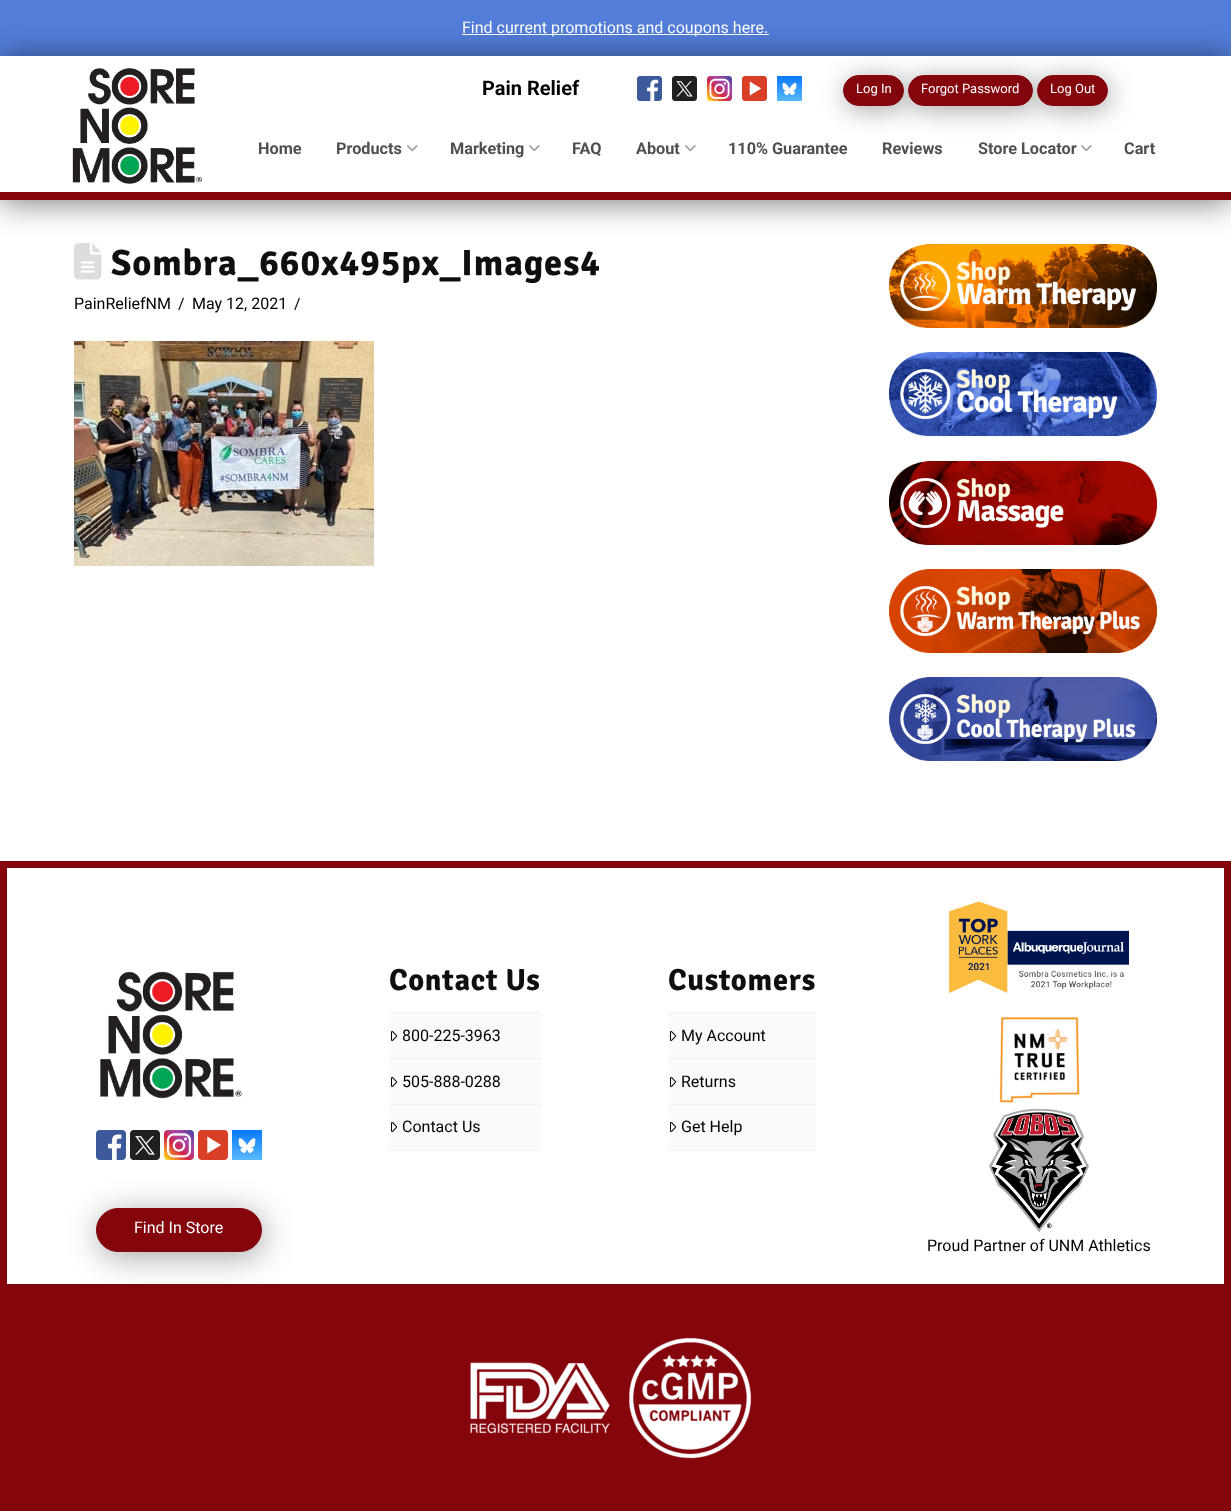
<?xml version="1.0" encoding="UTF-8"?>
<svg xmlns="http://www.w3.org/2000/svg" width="1231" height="1511">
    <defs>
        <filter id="blur1" x="-50%" y="-200%" width="200%" height="500%"><feGaussianBlur stdDeviation="16"/></filter>
        <filter id="blur2" x="-50%" y="-200%" width="200%" height="500%"><feGaussianBlur stdDeviation="13"/></filter>
    </defs>
    <rect width="100%" height="100%" fill="#FFFFFF"/>
    <rect x="0" y="0" width="1231" height="56" fill="#527EDA"/>
    <rect x="462" y="34" width="307" height="1" fill="#FFFFFF"/>
    <text x="462" y="33" font-family="Roboto" font-size="16" fill="#FFFFFF">Find current promotions and coupons here.</text>
    <image x="74" y="243" width="28" height="37" href="img_08.png"/>
    <image x="889" y="244" width="268" height="84" href="img_10.png"/>
    <rect x="0" y="58" width="1231" height="144" fill="#000000" fill-opacity="0.54" filter="url(#blur1)"/>
    <rect x="0" y="56" width="1231" height="136" fill="#FFFFFF"/>
    <text x="482" y="95" font-family="Roboto" font-size="20" font-weight="700" fill="#000000">Pain Relief</text>
    <image x="637" y="76" width="25" height="25" href="img_01.png"/>
    <image x="672" y="76" width="25" height="25" href="img_02.png"/>
    <image x="707" y="76" width="25" height="25" href="img_03.png"/>
    <image x="742" y="76" width="25" height="25" href="img_04.png"/>
    <image x="777" y="76" width="25" height="25" href="img_05.png"/>
    <rect x="845" y="79" width="61" height="31" rx="15.5" fill="#000000" fill-opacity="0.35" filter="url(#blur2)"/>
    <rect x="843.5" y="75.5" width="60" height="30" rx="15" fill="#85050D" stroke="#85050D"/>
    <text x="856" y="93" font-family="Roboto" font-size="13" fill="#FFFFFF">Log In</text>
    <rect x="910" y="79" width="125" height="31" rx="15.5" fill="#000000" fill-opacity="0.35" filter="url(#blur2)"/>
    <rect x="908.5" y="75.5" width="124" height="30" rx="15" fill="#85050D" stroke="#85050D"/>
    <text x="921" y="93" font-family="Roboto" font-size="13" fill="#FFFFFF">Forgot Password</text>
    <image x="1081" y="145" width="11" height="7" href="img_07.png"/>
    <rect x="1039" y="79" width="71" height="31" rx="15.5" fill="#000000" fill-opacity="0.35" filter="url(#blur2)"/>
    <rect x="1037.5" y="75.5" width="70" height="30" rx="15" fill="#85050D" stroke="#85050D"/>
    <text x="1050" y="93" font-family="Roboto" font-size="13" fill="#FFFFFF">Log Out</text>
    <rect x="0" y="192" width="1231" height="8" fill="#85050D"/>
    <image x="72" y="68" width="131" height="116" href="img_06.png"/>
    <text x="258" y="154" font-family="Roboto" font-size="16.25" font-weight="700" fill="#4F4F4F">Home</text>
    <text x="336" y="154" font-family="Roboto" font-size="16.25" font-weight="700" fill="#4F4F4F">Products</text>
    <image x="407" y="145" width="11" height="7" href="img_07.png"/>
    <text x="450" y="154" font-family="Roboto" font-size="16.25" font-weight="700" fill="#4F4F4F">Marketing</text>
    <image x="529" y="145" width="11" height="7" href="img_07.png"/>
    <text x="572" y="154" font-family="Roboto" font-size="16.25" font-weight="700" fill="#4F4F4F">FAQ</text>
    <text x="636" y="154" font-family="Roboto" font-size="16.25" font-weight="700" fill="#4F4F4F">About</text>
    <image x="685" y="145" width="11" height="7" href="img_07.png"/>
    <text x="728" y="154" font-family="Roboto" font-size="16.25" font-weight="700" fill="#4F4F4F">110% Guarantee</text>
    <text x="882" y="154" font-family="Roboto" font-size="16.25" font-weight="700" fill="#4F4F4F">Reviews</text>
    <text x="978" y="154" font-family="Roboto" font-size="16.25" font-weight="700" fill="#4F4F4F">Store Locator</text>
    <text x="1124" y="154" font-family="Roboto" font-size="16.25" font-weight="700" fill="#4F4F4F">Cart</text>
    <text x="111" y="275" font-family="Signika" font-size="36.5" font-weight="700" letter-spacing="0.9" fill="#0F0F0F">Sombra_660x495px_Images4</text>
    <text x="74" y="309" font-family="Roboto" font-size="16" fill="#000000">PainReliefNM</text>
    <text x="178" y="309" font-family="Roboto" font-size="16" fill="#000000">/</text>
    <text x="192" y="309" font-family="Roboto" font-size="16" fill="#000000">May 12, 2021</text>
    <text x="294" y="309" font-family="Roboto" font-size="16" fill="#000000">/</text>
    <image x="74" y="341" width="300" height="225" href="img_09.png"/>
    <image x="889" y="352" width="268" height="84" href="img_11.png"/>
    <image x="889" y="461" width="268" height="84" href="img_12.png"/>
    <image x="889" y="569" width="268" height="84" href="img_13.png"/>
    <image x="889" y="677" width="268" height="84" href="img_14.png"/>
    <rect x="3.5" y="864.5" width="1224" height="423" fill="none" stroke="#85050D" stroke-width="7"/>
    <text x="389" y="990" font-family="Signika" font-size="30.5" font-weight="700" letter-spacing="0.75" fill="#0F0F0F">Contact Us</text>
    <rect x="389" y="1150" width="152" height="1" fill="#F2F2F2"/>
    <rect x="389" y="1013" width="152" height="45" fill="#FAFAFA"/>
    <rect x="389" y="1012" width="152" height="1" fill="#F2F2F2"/>
    <image x="391" y="1031" width="6" height="10" href="img_15.png"/>
    <text x="402" y="1041" font-family="Roboto" font-size="16" fill="#000000">800-225-3963</text>
    <rect x="389" y="1059" width="152" height="45" fill="#FAFAFA"/>
    <rect x="389" y="1058" width="152" height="1" fill="#F2F2F2"/>
    <image x="391" y="1077" width="6" height="10" href="img_15.png"/>
    <text x="402" y="1087" font-family="Roboto" font-size="16" fill="#000000">505-888-0288</text>
    <rect x="389" y="1105" width="152" height="45" fill="#FAFAFA"/>
    <rect x="389" y="1104" width="152" height="1" fill="#F2F2F2"/>
    <image x="391" y="1122" width="6" height="10" href="img_15.png"/>
    <text x="402" y="1132" font-family="Roboto" font-size="16" fill="#000000">Contact Us</text>
    <text x="668" y="990" font-family="Signika" font-size="30.5" font-weight="700" letter-spacing="0.75" fill="#0F0F0F">Customers</text>
    <rect x="668" y="1150" width="148" height="1" fill="#F2F2F2"/>
    <rect x="668" y="1013" width="148" height="45" fill="#FAFAFA"/>
    <rect x="668" y="1012" width="148" height="1" fill="#F2F2F2"/>
    <image x="670" y="1031" width="6" height="10" href="img_15.png"/>
    <text x="681" y="1041" font-family="Roboto" font-size="16" fill="#000000">My Account</text>
    <rect x="668" y="1059" width="148" height="45" fill="#FAFAFA"/>
    <rect x="668" y="1058" width="148" height="1" fill="#F2F2F2"/>
    <image x="670" y="1077" width="6" height="10" href="img_15.png"/>
    <text x="681" y="1087" font-family="Roboto" font-size="16" fill="#000000">Returns</text>
    <rect x="668" y="1105" width="148" height="45" fill="#FAFAFA"/>
    <rect x="668" y="1104" width="148" height="1" fill="#F2F2F2"/>
    <image x="670" y="1122" width="6" height="10" href="img_15.png"/>
    <text x="681" y="1132" font-family="Roboto" font-size="16" fill="#000000">Get Help</text>
    <image x="100" y="971" width="142" height="128" href="img_16.png"/>
    <image x="96" y="1130" width="30" height="30" href="img_17.png"/>
    <image x="130" y="1130" width="30" height="30" href="img_18.png"/>
    <image x="164" y="1130" width="30" height="30" href="img_19.png"/>
    <image x="198" y="1130" width="30" height="30" href="img_20.png"/>
    <image x="232" y="1130" width="30" height="30" href="img_21.png"/>
    <rect x="98" y="1213" width="166" height="44" rx="22" fill="#000000" fill-opacity="0.35" filter="url(#blur1)"/>
    <rect x="96.5" y="1208.5" width="165" height="43" rx="21.5" fill="#85050D" stroke="#85050D"/>
    <text x="134" y="1233" font-family="Roboto" font-size="16" fill="#FFFFFF">Find In Store</text>
    <image x="949" y="901" width="180" height="93" href="img_22.png"/>
    <image x="999" y="1017" width="81" height="86" href="img_23.png"/>
    <image x="989" y="1109" width="100" height="123" href="img_24.png"/>
    <text x="927" y="1251" font-family="Roboto" font-size="16" fill="#000000">Proud Partner of UNM Athletics</text>
    <rect x="0" y="1291" width="1231" height="220" fill="#85050D"/>
    <image x="470" y="1362" width="140" height="72" href="img_25.png"/>
    <image x="629" y="1337" width="123" height="122" href="img_26.png"/>
</svg>
